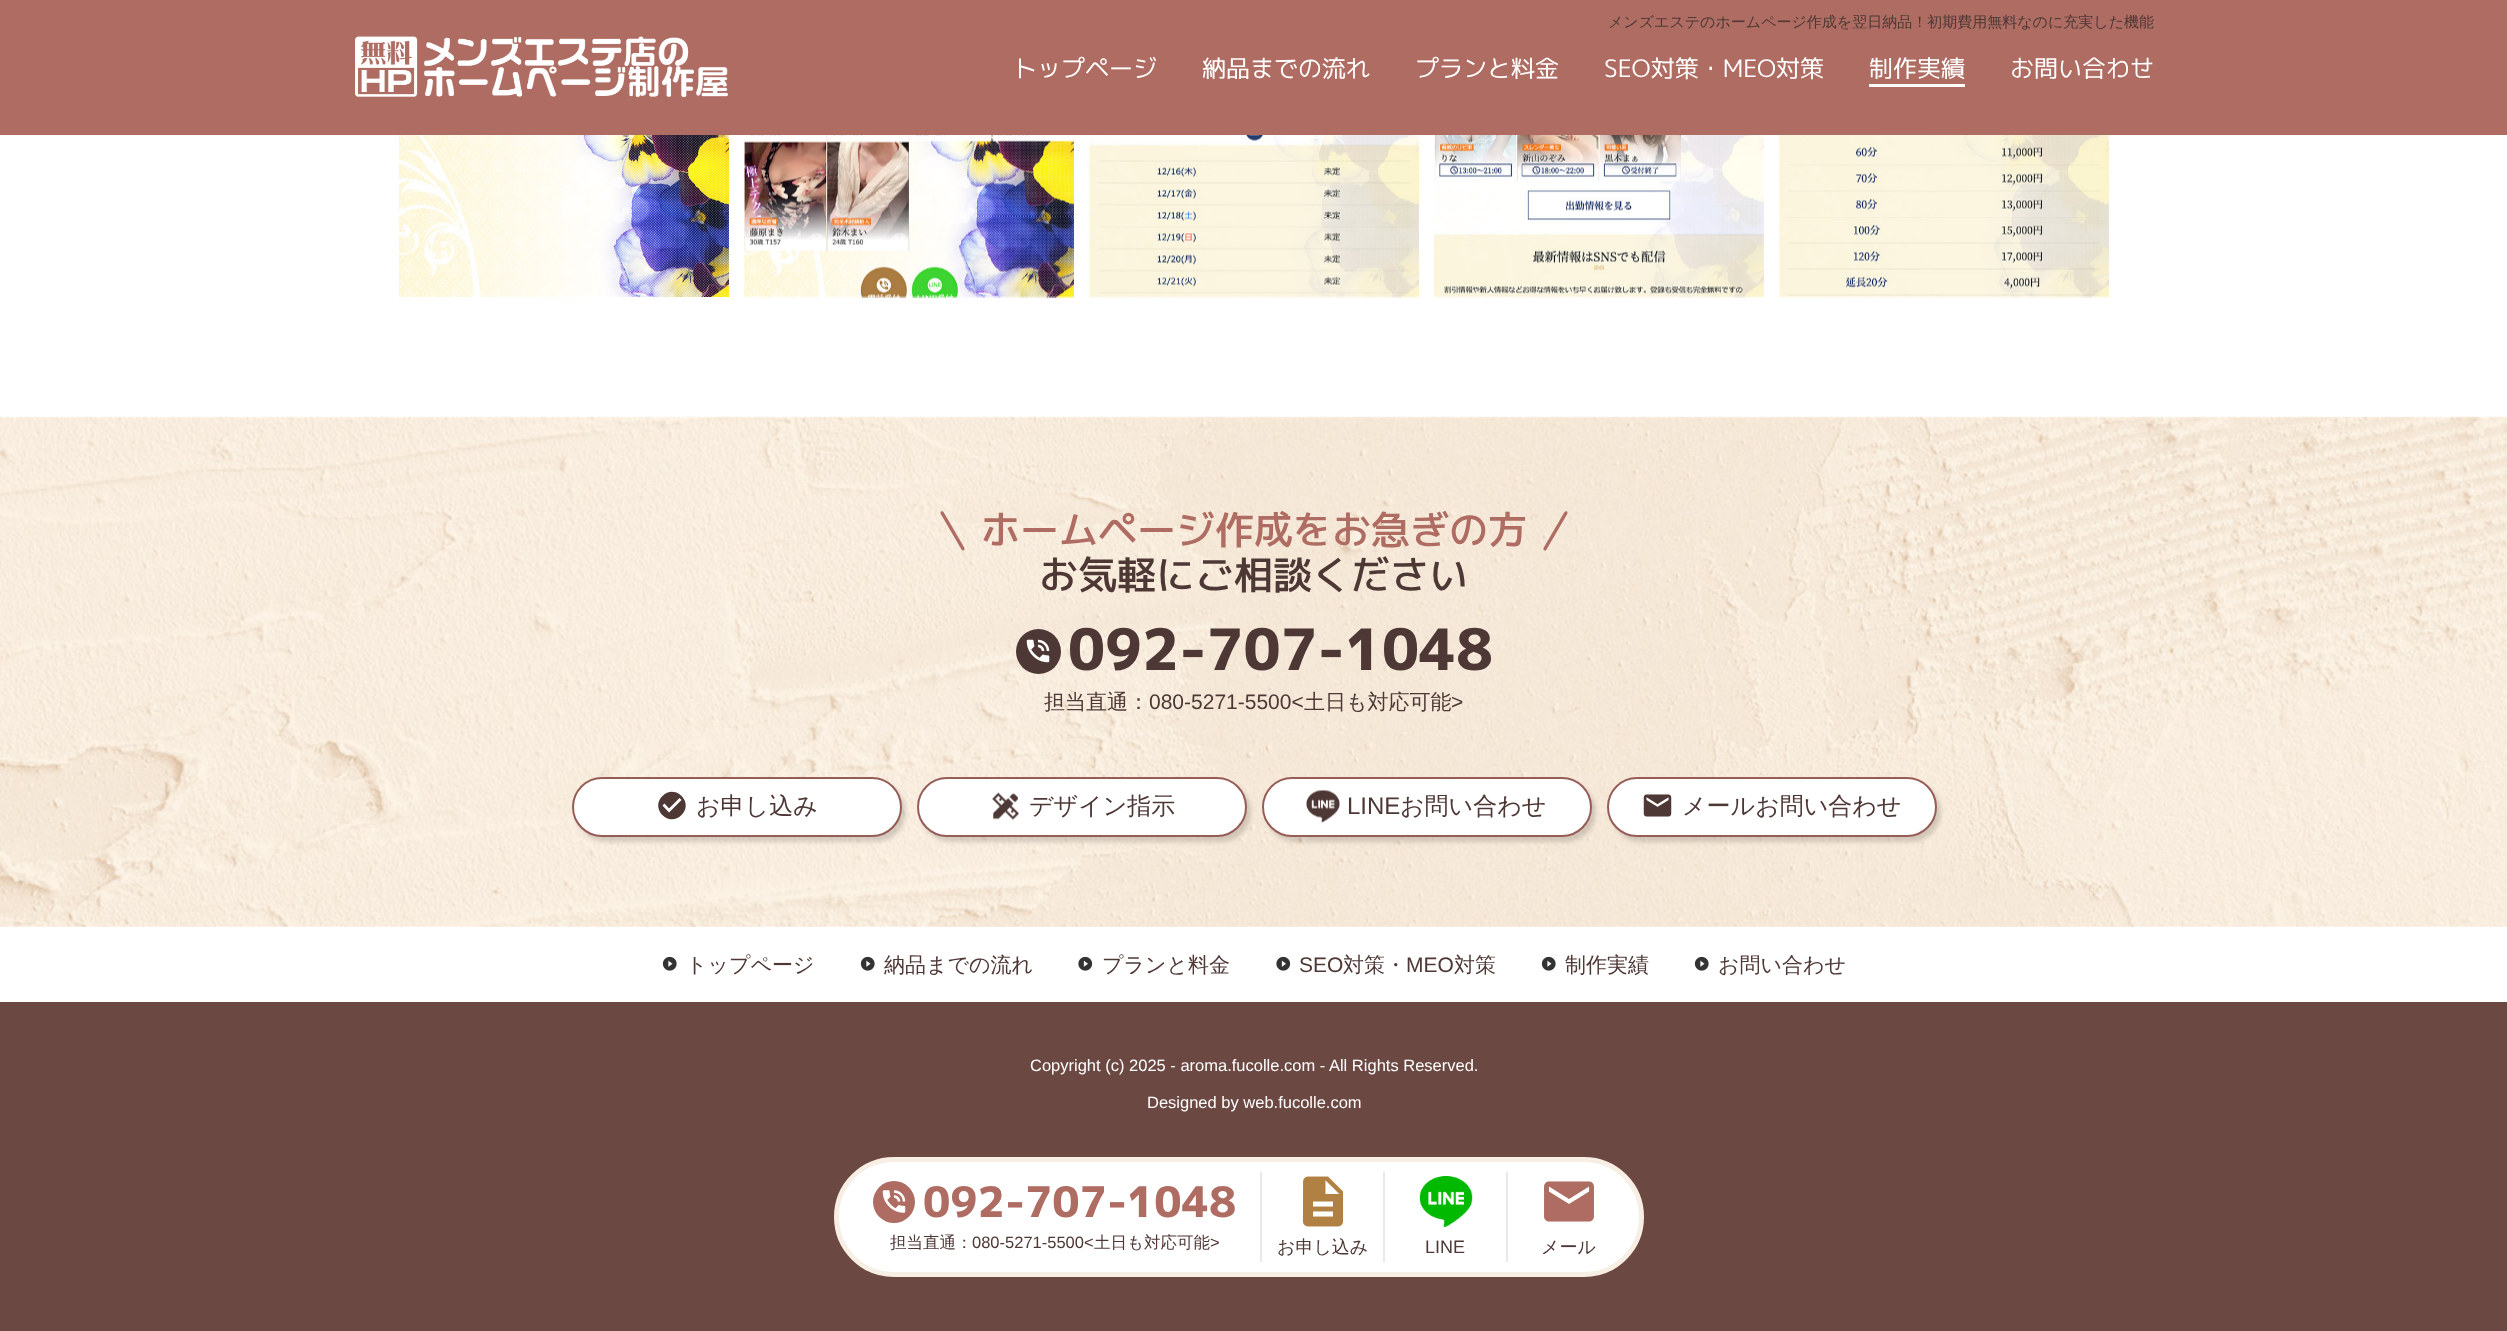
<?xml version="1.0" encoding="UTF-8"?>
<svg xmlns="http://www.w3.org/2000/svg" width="2507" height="1331">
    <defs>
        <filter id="blur1" x="-50%" y="-200%" width="200%" height="500%"><feGaussianBlur stdDeviation="2"/></filter>
    </defs>
    <rect width="100%" height="100%" fill="#FFFFFF"/>
    <rect x="0" y="0" width="2507" height="135" fill="#AE6C62"/>
    <text x="1608" y="27" font-family="WenQuanYi Zen Hei" font-size="15" font-weight="500" fill="#4E3836">メンズエステのホームページ作成を翌日納品！初期費用無料なのに充実した機能</text>
    <image x="355" y="36" width="373" height="61" href="img_01.png"/>
    <text x="1013" y="77" font-family="'M PLUS 1p'" font-size="24" fill="#FFFFFF">トップページ</text>
    <text x="1202" y="77" font-family="'M PLUS 1p'" font-size="24" fill="#FFFFFF">納品までの流れ</text>
    <text x="1415" y="77" font-family="'M PLUS 1p'" font-size="24" fill="#FFFFFF">プランと料金</text>
    <text x="1604" y="77" font-family="'M PLUS 1p'" font-size="24" fill="#FFFFFF">SEO対策・MEO対策</text>
    <text x="1869" y="77" font-family="'M PLUS 1p'" font-size="24" fill="#FFFFFF">制作実績</text>
    <rect x="1869" y="84" width="96" height="3" fill="#FFFFFF"/>
    <text x="2010" y="77" font-family="'M PLUS 1p'" font-size="24" fill="#FFFFFF">お問い合わせ</text>
    <image x="0" y="416" width="2507" height="511" href="img_02.png"/>
    <path d="M 941 511.5 C 942 511 943 511 943.5 512 L 964.5 548 C 964.5 549 964.5 550 963.5 550.5 C 963 550.5 962 550.5 961.5 549.5 L 940.5 513.5 C 940.5 512.5 940.5 511.5 941 511.5 Z" fill="#AE6C62"/>
    <text x="981" y="544" font-family="'M PLUS 1p'" font-size="39" font-weight="500" fill="#AE6C62">ホームページ作成をお急ぎの方</text>
    <path d="M 1567 511.5 C 1567.5 511.5 1567.5 512.5 1567.5 513.5 L 1546.5 549.5 C 1546 550.5 1545 550.5 1544 550.5 C 1543.5 550 1543.5 549 1543.5 548 L 1564.5 512 C 1565 511 1566 511 1567 511.5 Z" fill="#AE6C62"/>
    <text x="1039" y="589" font-family="'M PLUS 1p'" font-size="39" font-weight="500" fill="#4E3836">お気軽にご相談ください</text>
    <circle cx="1038.5" cy="651.5" r="22.5" fill="#4E3836"/>
    <image x="1026" y="639" width="24" height="24" href="img_03.png"/>
    <text x="1068" y="670" font-family="'M PLUS 1p'" font-size="57" font-weight="800" fill="#4E3836">092-707-1048</text>
    <text x="1044" y="709" font-family="WenQuanYi Zen Hei" font-size="21" font-weight="500" fill="#4E3836">担当直通：</text>
    <text x="1149" y="709" font-family="Liberation Sans" font-size="21" fill="#4E3836">080-5271-5500&lt;</text>
    <text x="1304" y="709" font-family="WenQuanYi Zen Hei" font-size="21" font-weight="500" fill="#4E3836">土日も対応可能</text>
    <text x="1451" y="709" font-family="Liberation Sans" font-size="21" fill="#4E3836">&gt;</text>
    <rect x="576" y="782" width="330" height="60" rx="30" fill="#000000" fill-opacity="0.15" filter="url(#blur1)"/>
    <rect x="573" y="778" width="328" height="58" rx="29" fill="#FFFFFF" stroke="#965D57" stroke-width="2"/>
    <path d="M 669 812.5 L 681.5 800 L 679.5 798 L 669 808.5 L 664.5 803.5 L 662.5 805.5 Z M 662.5 796 C 675 783 694.5 802.5 681.5 815 C 669 828 649.5 808.5 662.5 796 Z" fill="#4E3836"/>
    <text x="696" y="814" font-family="WenQuanYi Zen Hei" font-size="24" font-weight="500" fill="#4E3836">お申し込み</text>
    <rect x="921" y="782" width="330" height="60" rx="30" fill="#000000" fill-opacity="0.15" filter="url(#blur1)"/>
    <rect x="918" y="778" width="328" height="58" rx="29" fill="#FFFFFF" stroke="#965D57" stroke-width="2"/>
    <image x="992" y="792" width="27" height="28" href="img_04.png"/>
    <text x="1029" y="814" font-family="WenQuanYi Zen Hei" font-size="24" font-weight="500" fill="#4E3836">デザイン指示</text>
    <rect x="1266" y="782" width="330" height="60" rx="30" fill="#000000" fill-opacity="0.15" filter="url(#blur1)"/>
    <rect x="1263" y="778" width="328" height="58" rx="29" fill="#FFFFFF" stroke="#965D57" stroke-width="2"/>
    <image x="1306" y="789" width="34" height="34" href="img_05.png"/>
    <text x="1347" y="814" font-family="Liberation Sans" font-size="24" fill="#4E3836">LINE</text>
    <text x="1400" y="814" font-family="WenQuanYi Zen Hei" font-size="24" font-weight="500" fill="#4E3836">お問い合わせ</text>
    <rect x="1611" y="782" width="330" height="60" rx="30" fill="#000000" fill-opacity="0.15" filter="url(#blur1)"/>
    <rect x="1608" y="778" width="328" height="58" rx="29" fill="#FFFFFF" stroke="#965D57" stroke-width="2"/>
    <image x="1643" y="794" width="29" height="23" href="img_06.png"/>
    <text x="1682" y="814" font-family="WenQuanYi Zen Hei" font-size="24" font-weight="500" fill="#4E3836">メールお問い合わせ</text>
    <rect x="0" y="1002" width="2507" height="329" fill="#6C4843"/>
    <image x="662" y="956" width="15" height="15" href="img_07.png"/>
    <text x="686" y="972" font-family="WenQuanYi Zen Hei" font-size="21" font-weight="500" fill="#4E3836">トップページ</text>
    <image x="860" y="956" width="15" height="15" href="img_07.png"/>
    <text x="884" y="972" font-family="WenQuanYi Zen Hei" font-size="21" font-weight="500" fill="#4E3836">納品までの流れ</text>
    <image x="1078" y="956" width="15" height="15" href="img_08.png"/>
    <text x="1102" y="972" font-family="WenQuanYi Zen Hei" font-size="21" font-weight="500" fill="#4E3836">プランと料金</text>
    <image x="1276" y="956" width="15" height="15" href="img_08.png"/>
    <text x="1299" y="972" font-family="Liberation Sans" font-size="21" fill="#4E3836">SEO</text>
    <text x="1343" y="972" font-family="WenQuanYi Zen Hei" font-size="21" font-weight="500" fill="#4E3836">対策・</text>
    <text x="1406" y="972" font-family="Liberation Sans" font-size="21" fill="#4E3836">MEO</text>
    <text x="1454" y="972" font-family="WenQuanYi Zen Hei" font-size="21" font-weight="500" fill="#4E3836">対策</text>
    <image x="1541" y="956" width="15" height="15" href="img_07.png"/>
    <text x="1565" y="972" font-family="WenQuanYi Zen Hei" font-size="21" font-weight="500" fill="#4E3836">制作実績</text>
    <image x="1694" y="956" width="15" height="15" href="img_07.png"/>
    <text x="1718" y="972" font-family="WenQuanYi Zen Hei" font-size="21" font-weight="500" fill="#4E3836">お問い合わせ</text>
    <text x="1030" y="1071" font-family="Liberation Sans" font-size="16.5" fill="#FFFFFF">Copyright (c) 2025 - aroma.fucolle.com - All Rights Reserved.</text>
    <text x="1147" y="1108" font-family="Liberation Sans" font-size="16.5" fill="#FFFFFF">Designed by web.fucolle.com</text>
    <image x="399" y="135" width="330" height="162" href="img_09.png"/>
    <image x="744" y="135" width="330" height="163" href="img_10.png"/>
    <image x="1089" y="135" width="330" height="163" href="img_11.png"/>
    <image x="1434" y="135" width="330" height="163" href="img_12.png"/>
    <image x="1779" y="135" width="330" height="163" href="img_13.png"/>
    <rect x="836.5" y="1159.5" width="805" height="115" rx="57.5" fill="#FFFFFF" stroke="#F7EEE4" stroke-width="5"/>
    <circle cx="894" cy="1202" r="21" fill="#AE6C62"/>
    <image x="882" y="1190" width="24" height="23" href="img_14.png"/>
    <text x="923" y="1217" font-family="'M PLUS 1p'" font-size="42" font-weight="800" fill="#AE6C62">092-707-1048</text>
    <text x="890" y="1248" font-family="WenQuanYi Zen Hei" font-size="16.5" font-weight="500" fill="#4E3836">担当直通：</text>
    <text x="972" y="1248" font-family="Liberation Sans" font-size="16.5" fill="#4E3836">080-5271-5500&lt;</text>
    <text x="1094" y="1248" font-family="WenQuanYi Zen Hei" font-size="16.5" font-weight="500" fill="#4E3836">土日も対応可能</text>
    <text x="1210" y="1248" font-family="Liberation Sans" font-size="16.5" fill="#4E3836">&gt;</text>
    <rect x="1260" y="1172" width="2" height="90" fill="#EBE9E8"/>
    <image x="1302" y="1176" width="42" height="51" href="img_15.png"/>
    <text x="1277" y="1253" font-family="WenQuanYi Zen Hei" font-size="18" font-weight="500" fill="#4E3836">お申し込み</text>
    <rect x="1383" y="1172" width="2" height="90" fill="#EBE9E8"/>
    <image x="1419" y="1176" width="54" height="51" href="img_16.png"/>
    <text x="1425" y="1253" font-family="Liberation Sans" font-size="18" fill="#4E3836">LINE</text>
    <rect x="1506" y="1172" width="2" height="90" fill="#EBE9E8"/>
    <image x="1544" y="1181" width="50" height="41" href="img_17.png"/>
    <text x="1541" y="1253" font-family="WenQuanYi Zen Hei" font-size="18" font-weight="500" fill="#4E3836">メール</text>
</svg>
